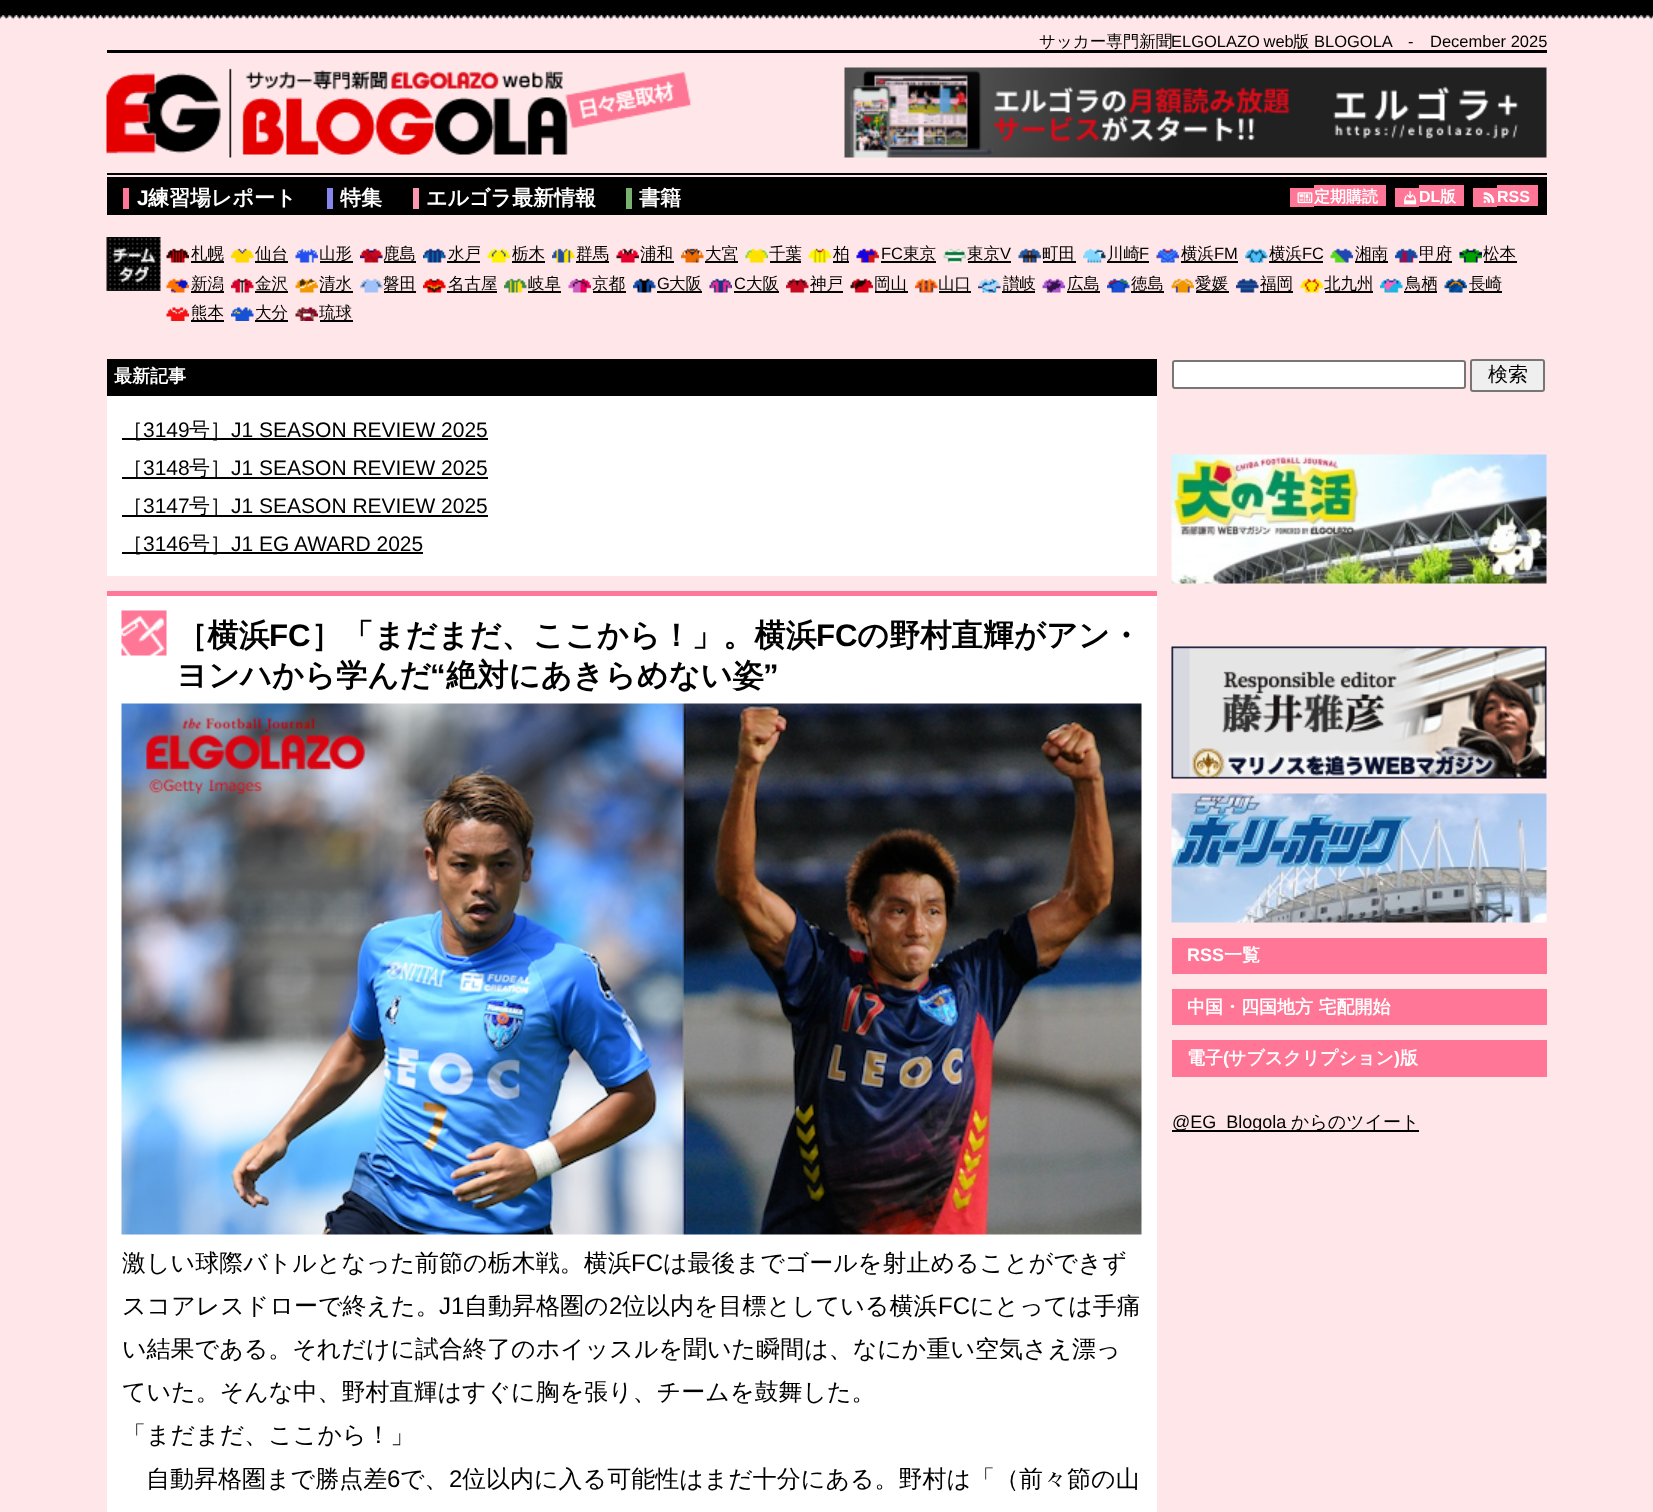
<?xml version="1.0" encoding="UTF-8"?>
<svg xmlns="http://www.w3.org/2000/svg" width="1653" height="1512">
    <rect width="100%" height="100%" fill="#000000"/>
    <rect x="0" y="19" width="1653" height="1493" fill="#FFE7E9"/>
    <image x="0" y="15" width="1653" height="5" href="img_01.png"/>
    <rect x="107" y="50" width="1440" height="3" fill="#000000"/>
    <text x="1039" y="47" font-family="WenQuanYi Zen Hei" font-size="16.5" font-weight="500" fill="#000000">サッカー専門新聞</text>
    <text x="1171" y="47" word-spacing="-1" font-family="Liberation Sans" font-size="16.5" fill="#000000">ELGOLAZO web</text>
    <text x="1293" y="47" font-family="WenQuanYi Zen Hei" font-size="16.5" font-weight="500" fill="#000000">版</text>
    <text x="1314" y="47" font-family="Liberation Sans" font-size="16.5" fill="#000000">BLOGOLA</text>
    <text x="1408" y="47" font-family="Liberation Sans" font-size="16.5" fill="#000000">-</text>
    <text x="1430" y="47" font-family="Liberation Sans" font-size="16.5" fill="#000000">December 2025</text>
    <image x="106" y="68" width="586" height="90" href="img_02.png"/>
    <image x="844" y="67" width="703" height="91" href="img_03.png"/>
    <rect x="107" y="173" width="1440" height="2" fill="#000000"/>
    <rect x="107" y="177" width="1440" height="38" fill="#000000"/>
    <rect x="123" y="188" width="6" height="21" fill="#FF7799"/>
    <text x="137" y="205" font-family="Liberation Sans" font-size="21" font-weight="700" fill="#FFFFFF">J</text>
    <text x="148" y="205" font-family="WenQuanYi Zen Hei" font-size="21" font-weight="700" fill="#FFFFFF">練習場レポート</text>
    <rect x="327" y="188" width="6" height="21" fill="#8686EE"/>
    <text x="340" y="205" font-family="WenQuanYi Zen Hei" font-size="21" font-weight="700" fill="#FFFFFF">特集</text>
    <rect x="413" y="188" width="6" height="21" fill="#FD97AF"/>
    <text x="426" y="205" font-family="WenQuanYi Zen Hei" font-size="21" font-weight="700" fill="#FFFFFF">エルゴラ最新情報</text>
    <rect x="626" y="188" width="6" height="21" fill="#78B26E"/>
    <text x="639" y="205" font-family="WenQuanYi Zen Hei" font-size="21" font-weight="700" fill="#FFFFFF">書籍</text>
    <rect x="1290" y="188" width="24" height="19" fill="#FF7696"/>
    <rect x="1314" y="185" width="72" height="21" fill="#FF7696"/>
    <image x="1297" y="192" width="16" height="12" href="img_04.png"/>
    <text x="1314" y="202" font-family="WenQuanYi Zen Hei" font-size="16" font-weight="700" fill="#FFFFFF">定期購読</text>
    <rect x="1395" y="188" width="24" height="19" fill="#FF7696"/>
    <rect x="1419" y="185" width="45" height="21" fill="#FF7696"/>
    <image x="1404" y="191" width="13" height="14" href="img_05.png"/>
    <text x="1419" y="202" font-family="Liberation Sans" font-size="16" font-weight="700" fill="#FFFFFF">DL</text>
    <text x="1440" y="202" font-family="WenQuanYi Zen Hei" font-size="16" font-weight="700" fill="#FFFFFF">版</text>
    <rect x="1473" y="188" width="24" height="19" fill="#FF7696"/>
    <rect x="1497" y="185" width="41" height="21" fill="#FF7696"/>
    <image x="1483" y="192" width="12" height="11" href="img_06.png"/>
    <text x="1497" y="202" font-family="Liberation Sans" font-size="16" font-weight="700" fill="#FFFFFF">RSS</text>
    <image x="106" y="237" width="55" height="54" href="img_07.png"/>
    <image x="166" y="248" width="23" height="15" href="img_08.png"/>
    <rect x="191" y="261" width="33" height="2" fill="#000000"/>
    <text x="191" y="259" font-family="WenQuanYi Zen Hei" font-size="16.5" font-weight="500" fill="#000000">札幌</text>
    <image x="231" y="248" width="23" height="15" href="img_09.png"/>
    <rect x="255" y="261" width="33" height="2" fill="#000000"/>
    <text x="255" y="259" font-family="WenQuanYi Zen Hei" font-size="16.5" font-weight="500" fill="#000000">仙台</text>
    <image x="295" y="248" width="23" height="15" href="img_10.png"/>
    <rect x="320" y="261" width="33" height="2" fill="#000000"/>
    <text x="319" y="259" font-family="WenQuanYi Zen Hei" font-size="16.5" font-weight="500" fill="#000000">山形</text>
    <image x="360" y="248" width="23" height="15" href="img_11.png"/>
    <text x="383" y="259" font-family="WenQuanYi Zen Hei" font-size="16.5" font-weight="500" fill="#000000">鹿島</text>
    <rect x="384" y="261" width="32" height="2" fill="#000000"/>
    <image x="423" y="248" width="23" height="15" href="img_12.png"/>
    <rect x="447" y="261" width="33" height="2" fill="#000000"/>
    <text x="448" y="259" font-family="WenQuanYi Zen Hei" font-size="16.5" font-weight="500" fill="#000000">水戸</text>
    <image x="487" y="248" width="23" height="15" href="img_13.png"/>
    <text x="512" y="259" font-family="WenQuanYi Zen Hei" font-size="16.5" font-weight="500" fill="#000000">栃木</text>
    <rect x="512" y="261" width="33" height="2" fill="#000000"/>
    <image x="552" y="248" width="23" height="15" href="img_14.png"/>
    <rect x="576" y="261" width="33" height="2" fill="#000000"/>
    <text x="576" y="259" font-family="WenQuanYi Zen Hei" font-size="16.5" font-weight="500" fill="#000000">群馬</text>
    <image x="616" y="248" width="23" height="15" href="img_15.png"/>
    <text x="640" y="259" font-family="WenQuanYi Zen Hei" font-size="16.5" font-weight="500" fill="#000000">浦和</text>
    <rect x="641" y="261" width="33" height="2" fill="#000000"/>
    <image x="681" y="248" width="23" height="15" href="img_16.png"/>
    <text x="705" y="259" font-family="WenQuanYi Zen Hei" font-size="16.5" font-weight="500" fill="#000000">大宮</text>
    <rect x="705" y="261" width="33" height="2" fill="#000000"/>
    <image x="745" y="248" width="23" height="15" href="img_17.png"/>
    <text x="769" y="259" font-family="WenQuanYi Zen Hei" font-size="16.5" font-weight="500" fill="#000000">千葉</text>
    <rect x="770" y="261" width="31" height="2" fill="#000000"/>
    <image x="808" y="248" width="23" height="15" href="img_18.png"/>
    <rect x="833" y="261" width="16" height="2" fill="#000000"/>
    <text x="833" y="259" font-family="WenQuanYi Zen Hei" font-size="16.5" font-weight="500" fill="#000000">柏</text>
    <image x="856" y="248" width="23" height="15" href="img_19.png"/>
    <text x="881" y="259" font-family="Liberation Sans" font-size="16.5" fill="#000000">FC</text>
    <rect x="881" y="261" width="55" height="2" fill="#000000"/>
    <text x="903" y="259" font-family="WenQuanYi Zen Hei" font-size="16.5" font-weight="500" fill="#000000">東京</text>
    <image x="943" y="248" width="23" height="15" href="img_20.png"/>
    <rect x="968" y="261" width="43" height="2" fill="#000000"/>
    <text x="967" y="259" font-family="WenQuanYi Zen Hei" font-size="16.5" font-weight="500" fill="#000000">東京</text>
    <text x="1000" y="259" font-family="Liberation Sans" font-size="16.5" fill="#000000">V</text>
    <image x="1018" y="248" width="23" height="15" href="img_21.png"/>
    <rect x="1043" y="261" width="33" height="2" fill="#000000"/>
    <text x="1042" y="259" font-family="WenQuanYi Zen Hei" font-size="16.5" font-weight="500" fill="#000000">町田</text>
    <image x="1083" y="248" width="23" height="15" href="img_22.png"/>
    <rect x="1107" y="261" width="42" height="2" fill="#000000"/>
    <text x="1107" y="259" font-family="WenQuanYi Zen Hei" font-size="16.5" font-weight="500" fill="#000000">川崎</text>
    <text x="1139" y="259" font-family="Liberation Sans" font-size="16.5" fill="#000000">F</text>
    <image x="1156" y="248" width="23" height="15" href="img_23.png"/>
    <rect x="1181" y="261" width="57" height="2" fill="#000000"/>
    <text x="1181" y="259" font-family="WenQuanYi Zen Hei" font-size="16.5" font-weight="500" fill="#000000">横浜</text>
    <text x="1214" y="259" font-family="Liberation Sans" font-size="16.5" fill="#000000">FM</text>
    <image x="1245" y="248" width="23" height="15" href="img_24.png"/>
    <rect x="1269" y="261" width="54" height="2" fill="#000000"/>
    <text x="1269" y="259" font-family="WenQuanYi Zen Hei" font-size="16.5" font-weight="500" fill="#000000">横浜</text>
    <text x="1302" y="259" font-family="Liberation Sans" font-size="16.5" fill="#000000">FC</text>
    <image x="1330" y="248" width="23" height="15" href="img_25.png"/>
    <rect x="1355" y="261" width="33" height="2" fill="#000000"/>
    <text x="1355" y="259" font-family="WenQuanYi Zen Hei" font-size="16.5" font-weight="500" fill="#000000">湘南</text>
    <image x="1395" y="248" width="23" height="15" href="img_26.png"/>
    <rect x="1419" y="261" width="33" height="2" fill="#000000"/>
    <text x="1419" y="259" font-family="WenQuanYi Zen Hei" font-size="16.5" font-weight="500" fill="#000000">甲府</text>
    <image x="1459" y="248" width="23" height="15" href="img_27.png"/>
    <text x="1483" y="259" font-family="WenQuanYi Zen Hei" font-size="16.5" font-weight="500" fill="#000000">松本</text>
    <rect x="1484" y="261" width="33" height="2" fill="#000000"/>
    <image x="166" y="278" width="23" height="15" href="img_28.png"/>
    <text x="191" y="289" font-family="WenQuanYi Zen Hei" font-size="16.5" font-weight="500" fill="#000000">新潟</text>
    <rect x="191" y="291" width="33" height="2" fill="#000000"/>
    <image x="231" y="278" width="23" height="15" href="img_29.png"/>
    <text x="255" y="289" font-family="WenQuanYi Zen Hei" font-size="16.5" font-weight="500" fill="#000000">金沢</text>
    <rect x="255" y="291" width="33" height="2" fill="#000000"/>
    <image x="295" y="278" width="23" height="15" href="img_30.png"/>
    <rect x="320" y="291" width="33" height="2" fill="#000000"/>
    <text x="319" y="289" font-family="WenQuanYi Zen Hei" font-size="16.5" font-weight="500" fill="#000000">清水</text>
    <image x="360" y="278" width="23" height="15" href="img_31.png"/>
    <text x="383" y="289" font-family="WenQuanYi Zen Hei" font-size="16.5" font-weight="500" fill="#000000">磐田</text>
    <rect x="384" y="291" width="32" height="2" fill="#000000"/>
    <image x="423" y="278" width="23" height="15" href="img_32.png"/>
    <text x="448" y="289" font-family="WenQuanYi Zen Hei" font-size="16.5" font-weight="500" fill="#000000">名古屋</text>
    <rect x="447" y="291" width="50" height="2" fill="#000000"/>
    <image x="504" y="278" width="23" height="15" href="img_33.png"/>
    <text x="528" y="289" font-family="WenQuanYi Zen Hei" font-size="16.5" font-weight="500" fill="#000000">岐阜</text>
    <rect x="528" y="291" width="33" height="2" fill="#000000"/>
    <image x="568" y="278" width="23" height="15" href="img_34.png"/>
    <rect x="593" y="291" width="33" height="2" fill="#000000"/>
    <text x="592" y="289" font-family="WenQuanYi Zen Hei" font-size="16.5" font-weight="500" fill="#000000">京都</text>
    <image x="633" y="278" width="23" height="15" href="img_35.png"/>
    <text x="657" y="289" font-family="Liberation Sans" font-size="16.5" fill="#000000">G</text>
    <rect x="657" y="291" width="45" height="2" fill="#000000"/>
    <text x="669" y="289" font-family="WenQuanYi Zen Hei" font-size="16.5" font-weight="500" fill="#000000">大阪</text>
    <image x="709" y="278" width="23" height="15" href="img_36.png"/>
    <text x="734" y="289" font-family="Liberation Sans" font-size="16.5" fill="#000000">C</text>
    <rect x="734" y="291" width="45" height="2" fill="#000000"/>
    <text x="746" y="289" font-family="WenQuanYi Zen Hei" font-size="16.5" font-weight="500" fill="#000000">大阪</text>
    <image x="786" y="278" width="23" height="15" href="img_37.png"/>
    <rect x="810" y="291" width="33" height="2" fill="#000000"/>
    <text x="810" y="289" font-family="WenQuanYi Zen Hei" font-size="16.5" font-weight="500" fill="#000000">神戸</text>
    <image x="850" y="278" width="23" height="15" href="img_38.png"/>
    <rect x="875" y="291" width="33" height="2" fill="#000000"/>
    <text x="874" y="289" font-family="WenQuanYi Zen Hei" font-size="16.5" font-weight="500" fill="#000000">岡山</text>
    <image x="915" y="278" width="23" height="15" href="img_39.png"/>
    <text x="938" y="289" font-family="WenQuanYi Zen Hei" font-size="16.5" font-weight="500" fill="#000000">山口</text>
    <rect x="939" y="291" width="32" height="2" fill="#000000"/>
    <image x="978" y="278" width="23" height="15" href="img_40.png"/>
    <rect x="1002" y="291" width="33" height="2" fill="#000000"/>
    <text x="1003" y="289" font-family="WenQuanYi Zen Hei" font-size="16.5" font-weight="500" fill="#000000">讃岐</text>
    <image x="1042" y="278" width="23" height="15" href="img_41.png"/>
    <text x="1067" y="289" font-family="WenQuanYi Zen Hei" font-size="16.5" font-weight="500" fill="#000000">広島</text>
    <rect x="1067" y="291" width="33" height="2" fill="#000000"/>
    <image x="1107" y="278" width="23" height="15" href="img_42.png"/>
    <rect x="1131" y="291" width="33" height="2" fill="#000000"/>
    <text x="1131" y="289" font-family="WenQuanYi Zen Hei" font-size="16.5" font-weight="500" fill="#000000">徳島</text>
    <image x="1171" y="278" width="23" height="15" href="img_43.png"/>
    <rect x="1196" y="291" width="33" height="2" fill="#000000"/>
    <text x="1195" y="289" font-family="WenQuanYi Zen Hei" font-size="16.5" font-weight="500" fill="#000000">愛媛</text>
    <image x="1236" y="278" width="23" height="15" href="img_44.png"/>
    <rect x="1260" y="291" width="33" height="2" fill="#000000"/>
    <text x="1260" y="289" font-family="WenQuanYi Zen Hei" font-size="16.5" font-weight="500" fill="#000000">福岡</text>
    <image x="1300" y="278" width="23" height="15" href="img_45.png"/>
    <rect x="1325" y="291" width="48" height="2" fill="#000000"/>
    <text x="1324" y="289" font-family="WenQuanYi Zen Hei" font-size="16.5" font-weight="500" fill="#000000">北九州</text>
    <image x="1380" y="278" width="23" height="15" href="img_46.png"/>
    <rect x="1404" y="291" width="33" height="2" fill="#000000"/>
    <text x="1405" y="289" font-family="WenQuanYi Zen Hei" font-size="16.5" font-weight="500" fill="#000000">鳥栖</text>
    <image x="1444" y="278" width="23" height="15" href="img_47.png"/>
    <rect x="1469" y="291" width="33" height="2" fill="#000000"/>
    <text x="1469" y="289" font-family="WenQuanYi Zen Hei" font-size="16.5" font-weight="500" fill="#000000">長崎</text>
    <image x="166" y="307" width="23" height="14" href="img_48.png"/>
    <rect x="191" y="320" width="33" height="2" fill="#000000"/>
    <text x="191" y="318" font-family="WenQuanYi Zen Hei" font-size="16.5" font-weight="500" fill="#000000">熊本</text>
    <image x="231" y="307" width="23" height="14" href="img_49.png"/>
    <rect x="255" y="320" width="33" height="2" fill="#000000"/>
    <text x="255" y="318" font-family="WenQuanYi Zen Hei" font-size="16.5" font-weight="500" fill="#000000">大分</text>
    <image x="295" y="307" width="23" height="14" href="img_50.png"/>
    <rect x="320" y="320" width="33" height="2" fill="#000000"/>
    <text x="319" y="318" font-family="WenQuanYi Zen Hei" font-size="16.5" font-weight="500" fill="#000000">琉球</text>
    <rect x="107" y="359" width="1050" height="37" fill="#000000"/>
    <text x="114" y="382" font-family="WenQuanYi Zen Hei" font-size="18" font-weight="700" fill="#FFFFFF">最新記事</text>
    <rect x="107" y="396" width="1050" height="180" fill="#FFFFFF"/>
    <rect x="122" y="438" width="366" height="2" fill="#000000"/>
    <text x="122" y="437" font-family="WenQuanYi Zen Hei" font-size="21" font-weight="500" fill="#000000">［</text>
    <text x="143" y="437" font-family="Liberation Sans" font-size="21" fill="#000000">3149</text>
    <text x="189" y="437" font-family="WenQuanYi Zen Hei" font-size="21" font-weight="500" fill="#000000">号］</text>
    <text x="231" y="437" font-family="Liberation Sans" font-size="21" fill="#000000">J1 SEASON REVIEW 2025</text>
    <rect x="122" y="477" width="366" height="2" fill="#000000"/>
    <text x="122" y="475" font-family="WenQuanYi Zen Hei" font-size="21" font-weight="500" fill="#000000">［</text>
    <text x="143" y="475" font-family="Liberation Sans" font-size="21" fill="#000000">3148</text>
    <text x="189" y="475" font-family="WenQuanYi Zen Hei" font-size="21" font-weight="500" fill="#000000">号］</text>
    <text x="231" y="475" font-family="Liberation Sans" font-size="21" fill="#000000">J1 SEASON REVIEW 2025</text>
    <rect x="122" y="515" width="366" height="2" fill="#000000"/>
    <text x="122" y="513" font-family="WenQuanYi Zen Hei" font-size="21" font-weight="500" fill="#000000">［</text>
    <text x="143" y="513" font-family="Liberation Sans" font-size="21" fill="#000000">3147</text>
    <text x="189" y="513" font-family="WenQuanYi Zen Hei" font-size="21" font-weight="500" fill="#000000">号］</text>
    <text x="231" y="513" font-family="Liberation Sans" font-size="21" fill="#000000">J1 SEASON REVIEW 2025</text>
    <rect x="122" y="552" width="301" height="2" fill="#000000"/>
    <text x="122" y="551" font-family="WenQuanYi Zen Hei" font-size="21" font-weight="500" fill="#000000">［</text>
    <text x="143" y="551" font-family="Liberation Sans" font-size="21" fill="#000000">3146</text>
    <text x="189" y="551" font-family="WenQuanYi Zen Hei" font-size="21" font-weight="500" fill="#000000">号］</text>
    <text x="231" y="551" font-family="Liberation Sans" font-size="21" fill="#000000">J1 EG AWARD 2025</text>
    <rect x="107" y="596" width="1050" height="916" fill="#FFFFFF"/>
    <rect x="107" y="591" width="1050" height="5" fill="#FF7799"/>
    <image x="121" y="610" width="46" height="46" href="img_51.png"/>
    <text x="176" y="646" font-family="WenQuanYi Zen Hei" font-size="31.25" font-weight="700" fill="#000000">［横浜</text>
    <text x="269" y="646" font-family="Liberation Sans" font-size="31.25" font-weight="700" fill="#000000">FC</text>
    <text x="311" y="646" font-family="WenQuanYi Zen Hei" font-size="31.25" font-weight="700" fill="#000000">］「まだまだ、ここから！」。横浜</text>
    <text x="816" y="646" font-family="Liberation Sans" font-size="31.25" font-weight="700" fill="#000000">FC</text>
    <text x="857" y="646" font-family="WenQuanYi Zen Hei" font-size="31.25" font-weight="700" fill="#000000">の野村直輝がアン・</text>
    <text x="176" y="686" font-family="WenQuanYi Zen Hei" font-size="31.25" font-weight="700" fill="#000000">ヨンハから学んだ</text>
    <text x="430" y="686" font-family="Liberation Sans" font-size="31.25" font-weight="700" fill="#000000">“</text>
    <text x="446" y="686" font-family="WenQuanYi Zen Hei" font-size="31.25" font-weight="700" fill="#000000">絶対にあきらめない姿</text>
    <text x="763" y="686" font-family="Liberation Sans" font-size="31.25" font-weight="700" fill="#000000">”</text>
    <image x="121" y="703" width="1021" height="532" href="img_52.png"/>
    <text x="122" y="1271" font-family="WenQuanYi Zen Hei" font-size="24" font-weight="500" fill="#000000">激しい球際バトルとなった前節の栃木戦。横浜</text>
    <text x="631" y="1271" font-family="Liberation Sans" font-size="24" fill="#000000">FC</text>
    <text x="663" y="1271" font-family="WenQuanYi Zen Hei" font-size="24" font-weight="500" fill="#000000">は最後までゴールを射止めることができず</text>
    <text x="122" y="1314" font-family="WenQuanYi Zen Hei" font-size="24" font-weight="500" fill="#000000">スコアレスドローで終えた。</text>
    <text x="439" y="1314" font-family="Liberation Sans" font-size="24" fill="#000000">J1</text>
    <text x="464" y="1314" font-family="WenQuanYi Zen Hei" font-size="24" font-weight="500" fill="#000000">自動昇格圏の</text>
    <text x="609" y="1314" font-family="Liberation Sans" font-size="24" fill="#000000">2</text>
    <text x="622" y="1314" font-family="WenQuanYi Zen Hei" font-size="24" font-weight="500" fill="#000000">位以内を目標としている横浜</text>
    <text x="938" y="1314" font-family="Liberation Sans" font-size="24" fill="#000000">FC</text>
    <text x="970" y="1314" font-family="WenQuanYi Zen Hei" font-size="24" font-weight="500" fill="#000000">にとっては手痛</text>
    <text font-family="WenQuanYi Zen Hei" font-size="24" font-weight="500" fill="#000000">
        <tspan x="122" y="1357">い結果である。それだけに試合終了のホイッスルを聞いた瞬間は、なにか重い空気さえ漂っ</tspan>
        <tspan x="122" y="1400">ていた。そんな中、野村直輝はすぐに胸を張り、チームを鼓舞した。</tspan>
        <tspan x="122" y="1443">「まだまだ、ここから！」</tspan>
    </text>
    <text x="146" y="1487" font-family="WenQuanYi Zen Hei" font-size="24" font-weight="500" fill="#000000">自動昇格圏まで勝点差</text>
    <text x="387" y="1487" font-family="Liberation Sans" font-size="24" fill="#000000">6</text>
    <text x="400" y="1487" font-family="WenQuanYi Zen Hei" font-size="24" font-weight="500" fill="#000000">で、</text>
    <text x="449" y="1487" font-family="Liberation Sans" font-size="24" fill="#000000">2</text>
    <text x="462" y="1487" font-family="WenQuanYi Zen Hei" font-size="24" font-weight="500" fill="#000000">位以内に入る可能性はまだ十分にある。野村は「（前々節の山</text>
    <rect x="1173" y="361" width="292" height="27" rx="2" fill="#FFFFFF" stroke="#767676" stroke-width="2"/>
    <rect x="1471" y="360" width="73" height="31" rx="2" fill="#EFEFEF" stroke="#767676" stroke-width="2"/>
    <text x="1488" y="381" font-family="WenQuanYi Zen Hei" font-size="20" font-weight="500" fill="#000000">検索</text>
    <image x="1171" y="454" width="376" height="130" href="img_53.png"/>
    <image x="1171" y="646" width="376" height="133" href="img_54.png"/>
    <image x="1171" y="793" width="376" height="130" href="img_55.png"/>
    <rect x="1172" y="938" width="375" height="36" fill="#FF7696"/>
    <text x="1187" y="961" font-family="Liberation Sans" font-size="18" font-weight="700" fill="#FFFFFF">RSS</text>
    <text x="1224" y="961" font-family="WenQuanYi Zen Hei" font-size="18" font-weight="700" fill="#FFFFFF">一覧</text>
    <rect x="1172" y="989" width="375" height="36" fill="#FF7696"/>
    <text x="1187" y="1013" font-family="WenQuanYi Zen Hei" font-size="18" font-weight="700" fill="#FFFFFF">中国・四国地方 宅配開始</text>
    <rect x="1172" y="1040" width="375" height="37" fill="#FF7696"/>
    <text x="1187" y="1064" font-family="WenQuanYi Zen Hei" font-size="18" font-weight="700" fill="#FFFFFF">電子</text>
    <text x="1223" y="1064" font-family="Liberation Sans" font-size="18" font-weight="700" fill="#FFFFFF">(</text>
    <text x="1228" y="1064" font-family="WenQuanYi Zen Hei" font-size="18" font-weight="700" fill="#FFFFFF">サブスクリプション</text>
    <text x="1394" y="1064" font-family="Liberation Sans" font-size="18" font-weight="700" fill="#FFFFFF">)</text>
    <text x="1400" y="1064" font-family="WenQuanYi Zen Hei" font-size="18" font-weight="700" fill="#FFFFFF">版</text>
    <rect x="1172" y="1130" width="247" height="2" fill="#000000"/>
    <text x="1172" y="1128" font-family="Liberation Sans" font-size="18" fill="#000000">@EG_Blogola</text>
    <text x="1291" y="1128" font-family="WenQuanYi Zen Hei" font-size="18" font-weight="500" fill="#000000">からのツイート</text>
</svg>
